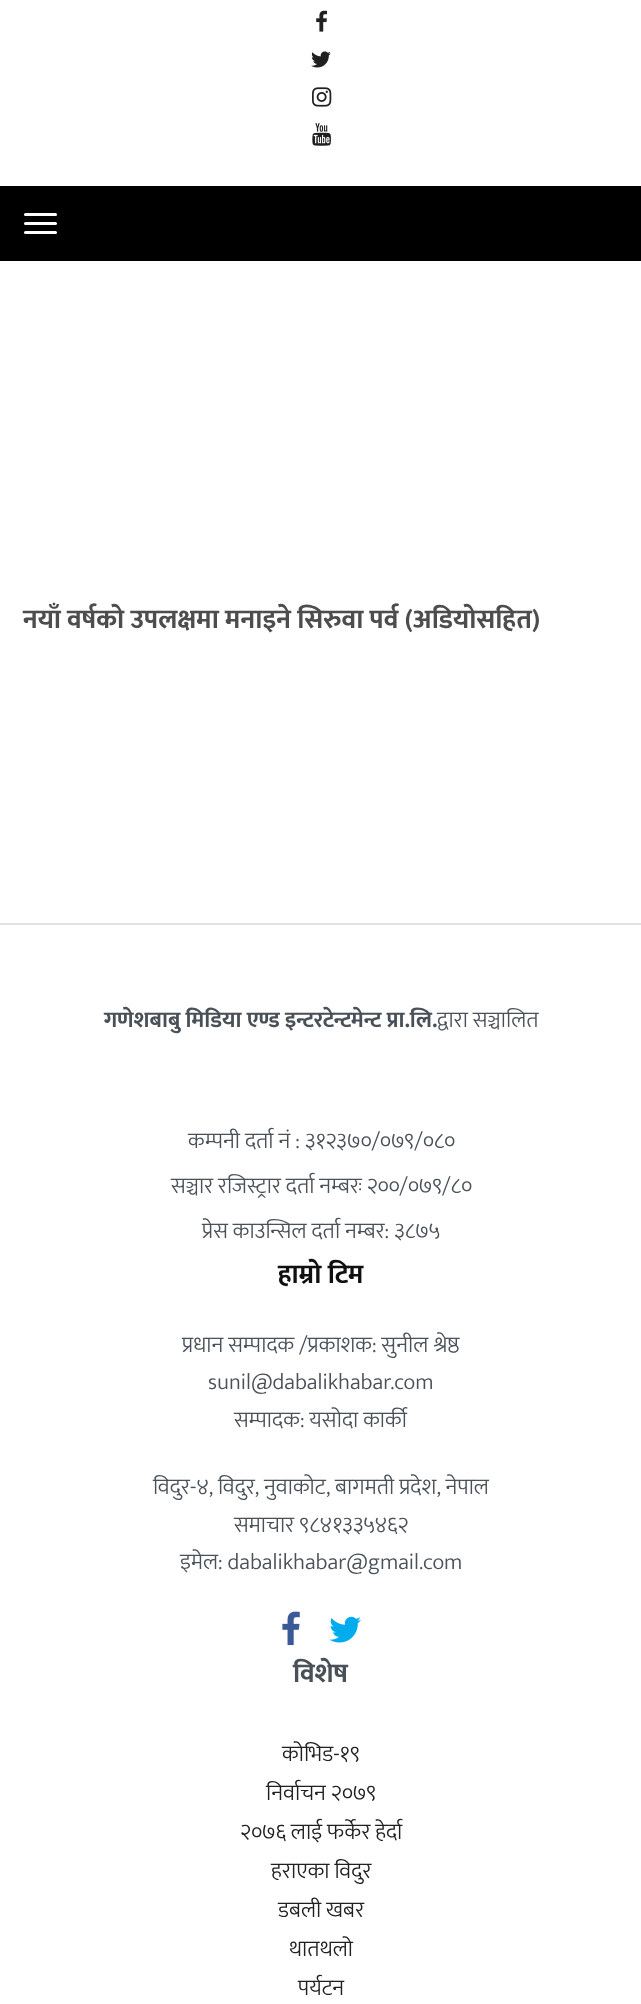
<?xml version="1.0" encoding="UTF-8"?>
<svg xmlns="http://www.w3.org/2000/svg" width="641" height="2004">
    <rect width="100%" height="100%" fill="#FFFFFF"/>
    <image x="316" y="10" width="12" height="22" href="img_01.png"/>
    <image x="311" y="51" width="20" height="17" href="img_02.png"/>
    <image x="312" y="87" width="20" height="20" href="img_03.png"/>
    <image x="312" y="123" width="19" height="23" href="img_04.png"/>
    <rect x="0" y="186" width="641" height="75" fill="#000000"/>
    <rect x="24" y="213" width="33" height="3" rx="1.5" fill="#FFFFFF"/>
    <rect x="24" y="222" width="33" height="3" rx="1.5" fill="#FFFFFF"/>
    <rect x="24" y="231" width="33" height="3" rx="1.5" fill="#FFFFFF"/>
    <text x="23" y="628" font-family="Mukta" font-size="27" font-weight="700" fill="#4D4D4D">नयाँ वर्षको उपलक्षमा मनाइने सिरुवा पर्व (अडियोसहित)</text>
    <rect x="0" y="923" width="641" height="2" fill="#DEE2E6"/>
    <text x="104" y="1027" font-family="Mukta" font-size="22.5" font-weight="700" fill="#495057">गणेशबाबु मिडिया एण्ड इन्टरटेन्टमेन्ट प्रा.लि.</text>
    <text x="437" y="1027" font-family="Mukta" font-size="22.5" font-weight="300" fill="#495057">द्वारा सञ्चालित</text>
    <text x="188" y="1148" font-family="Mukta" font-size="22.5" font-weight="300" fill="#495057">कम्पनी दर्ता नं : ३१२३७०/०७९/०८०</text>
    <text x="171" y="1193" font-family="Mukta" font-size="22.5" font-weight="300" fill="#495057">सञ्चार रजिस्ट्रार दर्ता नम्बरः २००/०७९/८०</text>
    <text x="202" y="1238" font-family="Mukta" font-size="22.5" font-weight="300" fill="#495057">प्रेस काउन्सिल दर्ता नम्बर: ३८७५</text>
    <text x="278" y="1283" font-family="Mukta" font-size="27" font-weight="700" fill="#101010">हाम्रो टिम</text>
    <text x="182" y="1352" font-family="Mukta" font-size="22.5" font-weight="300" fill="#495057">प्रधान सम्पादक /प्रकाशक: सुनील श्रेष्ठ</text>
    <text x="208" y="1389" font-family="Mukta" font-size="22.5" font-weight="300" fill="#495057">sunil@dabalikhabar.com</text>
    <text x="234" y="1427" font-family="Mukta" font-size="22.5" font-weight="300" fill="#495057">सम्पादक: यसोदा कार्की</text>
    <text x="153" y="1494" font-family="Mukta" font-size="22.5" font-weight="300" fill="#495057">विदुर-४, विदुर, नुवाकोट, बागमती प्रदेश, नेपाल</text>
    <text x="234" y="1532" font-family="Mukta" font-size="22.5" font-weight="300" fill="#495057">समाचार ९८४१३३५४६२</text>
    <text x="180" y="1569" font-family="Mukta" font-size="22.5" font-weight="300" fill="#495057">इमेल: dabalikhabar@gmail.com</text>
    <image x="282" y="1611" width="18" height="35" href="img_05.png"/>
    <image x="329" y="1616" width="32" height="27" href="img_06.png"/>
    <text x="293" y="1682" font-family="Mukta" font-size="27" font-weight="700" fill="#495057">विशेष</text>
    <text x="282" y="1761" font-family="Mukta" font-size="22.5" font-weight="300" fill="#202020">कोभिड-१९</text>
    <text x="266" y="1800" font-family="Mukta" font-size="22.5" font-weight="300" fill="#202020">निर्वाचन २०७९</text>
    <text x="240" y="1839" font-family="Mukta" font-size="22.5" font-weight="300" fill="#202020">२०७६ लाई फर्केर हेर्दा</text>
    <text x="271" y="1878" font-family="Mukta" font-size="22.5" font-weight="300" fill="#202020">हराएका विदुर</text>
    <text x="278" y="1917" font-family="Mukta" font-size="22.5" font-weight="300" fill="#202020">डबली खबर</text>
    <text x="289" y="1956" font-family="Mukta" font-size="22.5" font-weight="300" fill="#202020">थातथलो</text>
    <text x="298" y="1995" font-family="Mukta" font-size="22.5" font-weight="300" fill="#202020">पर्यटन</text>
</svg>
